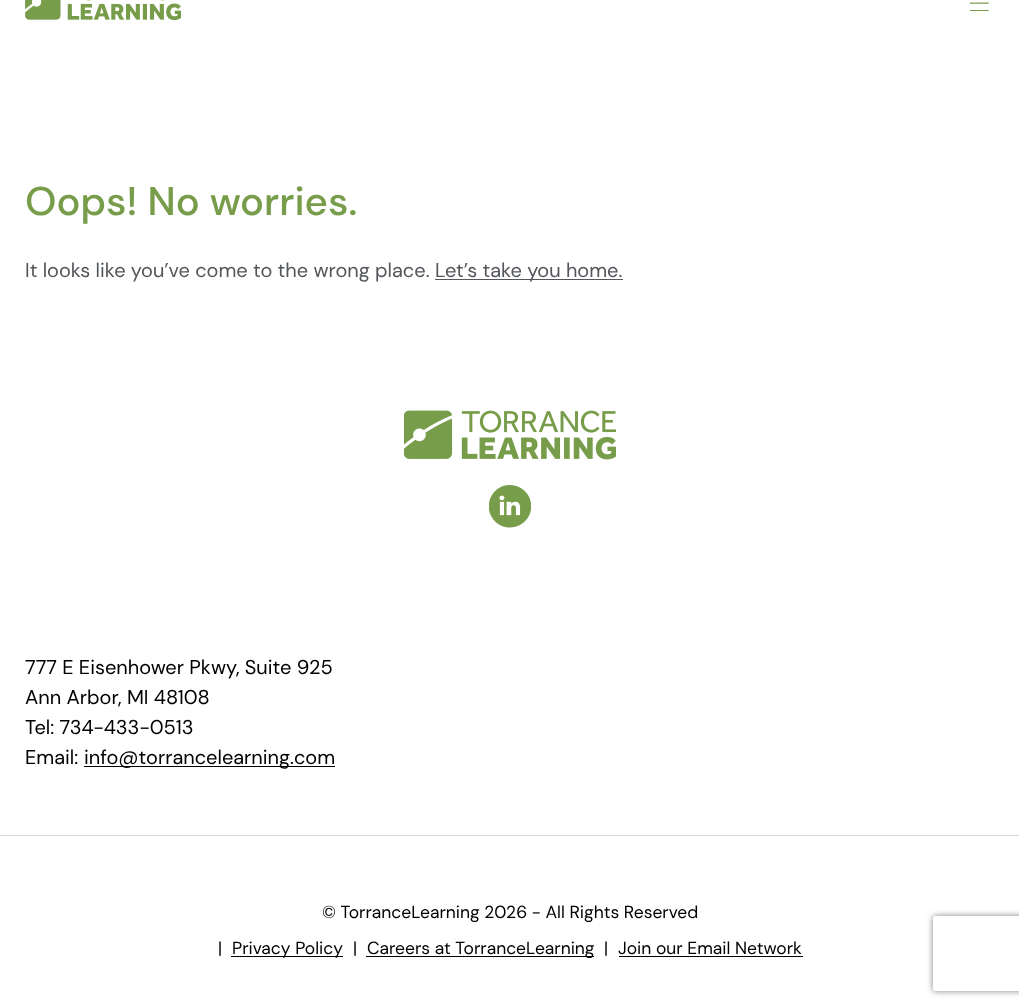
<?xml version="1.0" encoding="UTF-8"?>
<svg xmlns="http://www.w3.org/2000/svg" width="1019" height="1008">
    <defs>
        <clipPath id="clip1"><path d="M 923 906 H 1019 V 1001 H 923 Z M 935.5 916 H 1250.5 C 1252 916 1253 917 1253 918.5 V 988.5 C 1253 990 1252 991 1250.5 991 H 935.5 C 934 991 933 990 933 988.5 V 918.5 C 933 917 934 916 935.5 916 Z" clip-rule="evenodd"/></clipPath>
        <filter id="blur1" x="-50%" y="-200%" width="200%" height="500%"><feGaussianBlur stdDeviation="3"/></filter>
    </defs>
    <rect width="100%" height="100%" fill="#FFFFFF"/>
    <image x="25" y="0" width="156" height="20" href="img_01.png"/>
    <image x="970" y="2" width="19" height="9" href="img_02.png"/>
    <text x="25" y="215" font-family="DM Sans" font-size="40" font-weight="500" fill="#789D4A">Oops! No worries.</text>
    <text x="25" y="277" font-family="DM Sans" font-size="20" fill="#53565A">It looks like you’ve come to the wrong place.</text>
    <rect x="435" y="279" width="188" height="1" fill="#53565A"/>
    <text x="435" y="277" font-family="DM Sans" font-size="20" fill="#53565A">Let’s take you home.</text>
    <image x="404" y="410" width="212" height="50" href="img_03.png"/>
    <image x="489" y="485" width="42" height="43" href="img_04.png"/>
    <text font-family="DM Sans" font-size="20" fill="#000000">
        <tspan x="25" y="674">777 E Eisenhower Pkwy, Suite 925</tspan>
        <tspan x="25" y="704">Ann Arbor, MI 48108</tspan>
        <tspan x="25" y="734">Tel: 734-433-0513</tspan>
        <tspan x="25" y="764">Email:</tspan>
    </text>
    <rect x="84" y="766" width="251" height="1" fill="#000000"/>
    <text x="84" y="764" font-family="DM Sans" font-size="20" fill="#000000">info@torrancelearning.com</text>
    <rect x="0" y="835" width="1019" height="1" fill="#D9D9D6"/>
    <text x="322" y="918" font-family="DM Sans" font-size="17.5" fill="#000000">© TorranceLearning 2026 - All Rights Reserved</text>
    <text x="218" y="954" font-family="DM Sans" font-size="17.5" fill="#000000">|</text>
    <rect x="231" y="956" width="112" height="1" fill="#000000"/>
    <text x="232" y="954" font-family="DM Sans" font-size="17.5" fill="#000000">Privacy Policy</text>
    <text x="353" y="954" font-family="DM Sans" font-size="17.5" fill="#000000">|</text>
    <rect x="366" y="956" width="228" height="1" fill="#000000"/>
    <text x="367" y="954" font-family="DM Sans" font-size="17.5" fill="#000000">Careers at TorranceLearning</text>
    <text x="604" y="954" font-family="DM Sans" font-size="17.5" fill="#000000">|</text>
    <text x="618" y="954" font-family="DM Sans" font-size="17.5" fill="#000000">Join our Email Network</text>
    <rect x="619" y="956" width="184" height="1" fill="#000000"/>
    <g clip-path="url(#clip1)">
        <rect x="933" y="916" width="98" height="75" rx="2.5" fill="#808080" filter="url(#blur1)"/>
    </g>
</svg>
